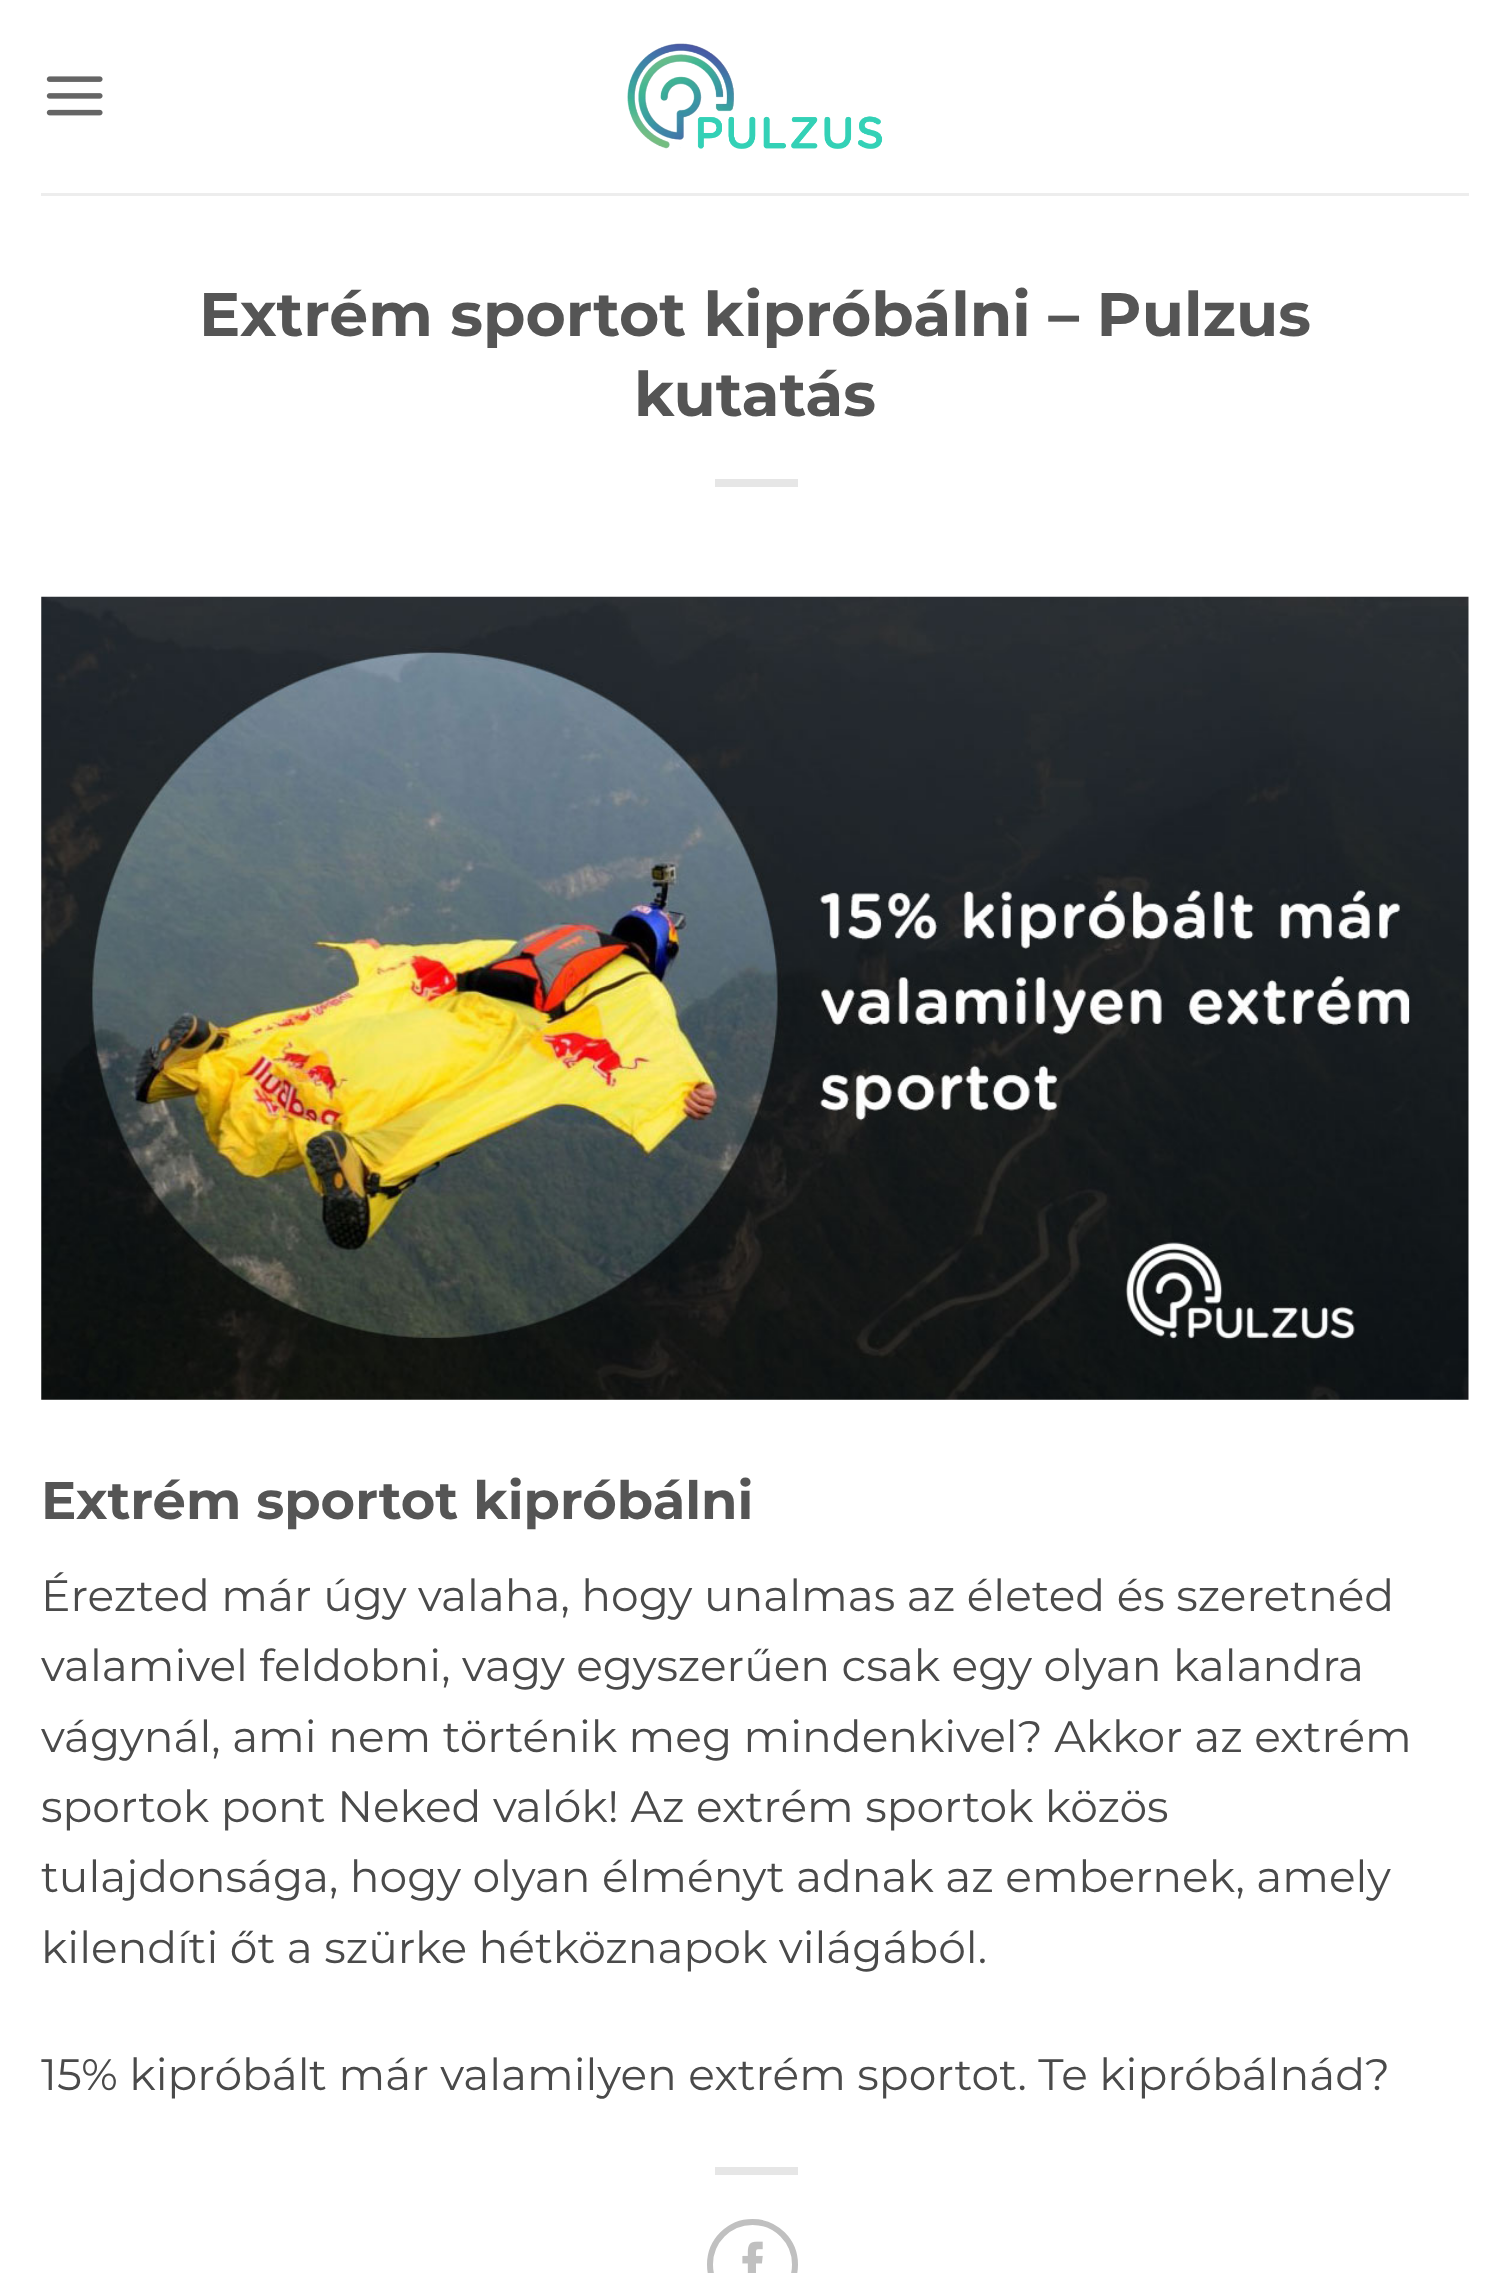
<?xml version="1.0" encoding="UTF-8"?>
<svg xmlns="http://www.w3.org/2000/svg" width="1509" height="2273">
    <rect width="100%" height="100%" fill="#FFFFFF"/>
    <image x="46" y="76" width="57" height="40" href="img_01.png"/>
    <image x="627" y="43" width="256" height="106" href="img_02.png"/>
    <rect x="41" y="193" width="1428" height="3" fill="#EDEDED"/>
    <text x="199" y="336" font-family="Montserrat" font-size="61.6" font-weight="700" fill="#555555">Extrém sportot kipróbálni – Pulzus</text>
    <text x="634" y="416" font-family="Montserrat" font-size="61.6" font-weight="700" fill="#555555">kutatás</text>
    <rect x="715" y="479" width="83" height="8" fill="#E6E6E6"/>
    <image x="41" y="596" width="1428" height="804" href="img_03.png"/>
    <text x="41" y="1519" font-family="Montserrat" font-size="52.75" font-weight="700" fill="#555555">Extrém sportot kipróbálni</text>
    <text font-family="Montserrat" font-size="44" fill="#4A4A4A">
        <tspan x="41" y="1611">Érezted már úgy valaha, hogy unalmas az életed és szeretnéd</tspan>
        <tspan x="41" y="1681">valamivel feldobni, vagy egyszerűen csak egy olyan kalandra</tspan>
        <tspan x="41" y="1752">vágynál, ami nem történik meg mindenkivel? Akkor az extrém</tspan>
        <tspan x="41" y="1822">sportok pont Neked valók! Az extrém sportok közös</tspan>
        <tspan x="41" y="1892">tulajdonsága, hogy olyan élményt adnak az embernek, amely</tspan>
        <tspan x="41" y="1963">kilendíti őt a szürke hétköznapok világából.</tspan>
    </text>
    <text x="41" y="2090" font-family="Montserrat" font-size="44" fill="#4A4A4A">15% kipróbált már valamilyen extrém sportot. Te kipróbálnád?</text>
    <rect x="715" y="2167" width="83" height="8" fill="#E6E6E6"/>
    <circle cx="752.5" cy="2264.5" r="42.5" fill="none" stroke="#C0C0C0" stroke-width="6"/>
    <image x="742" y="2241" width="21" height="32" href="img_04.png"/>
</svg>
